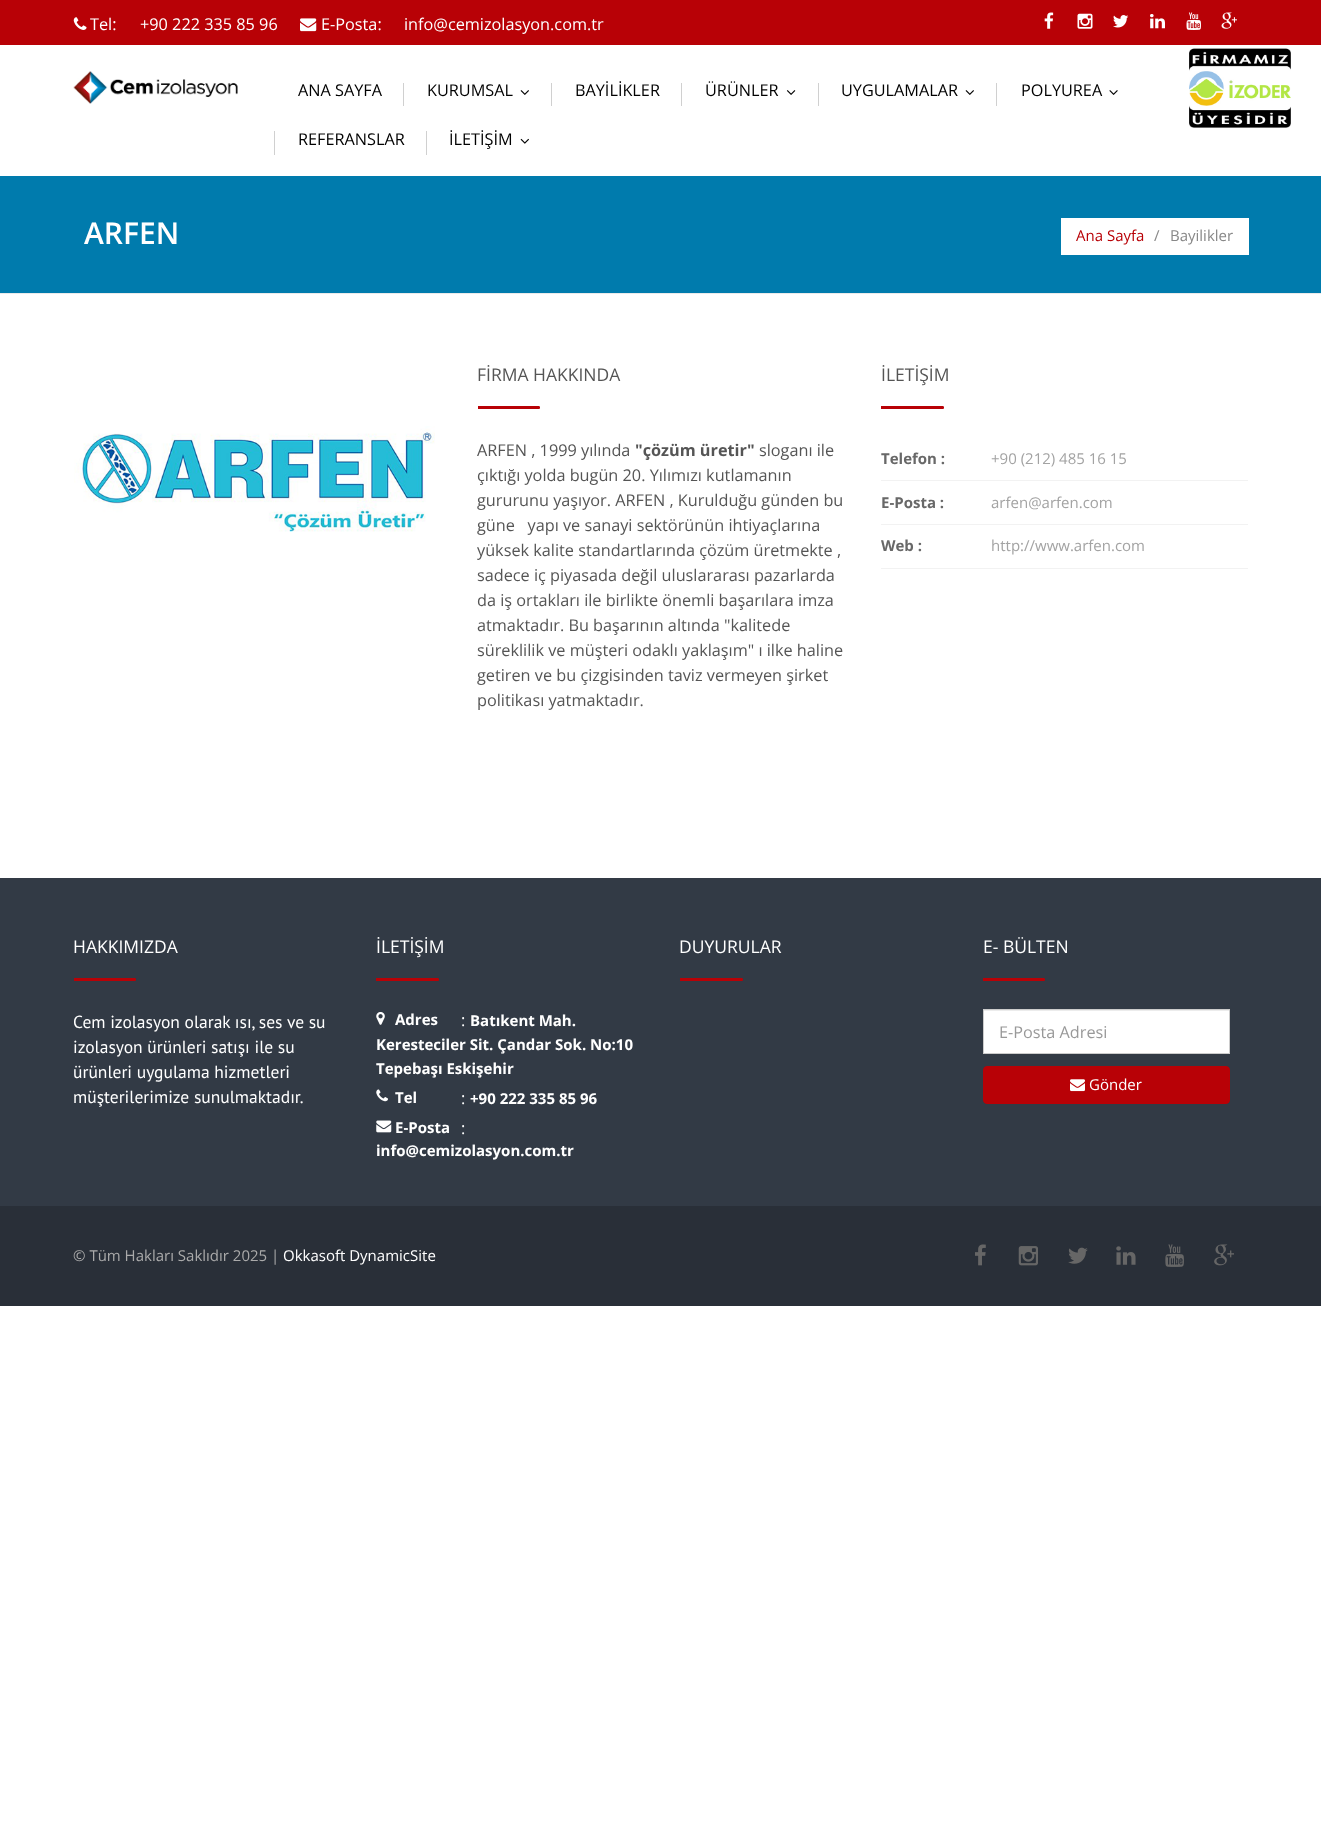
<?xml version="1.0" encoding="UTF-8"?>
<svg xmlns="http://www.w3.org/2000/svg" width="1321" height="1841">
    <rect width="100%" height="100%" fill="#FFFFFF"/>
    <rect x="0" y="0" width="1321" height="45" fill="#B80106"/>
    <image x="73" y="17" width="14" height="13" href="img_01.png"/>
    <text x="90" y="30" font-family="Open Sans" font-size="16.25" fill="#FFFFFF">Tel:</text>
    <text x="140" y="30" font-family="Open Sans" font-size="16.25" fill="#FFFFFF">+90 222 335 85 96</text>
    <image x="300" y="18" width="17" height="14" href="img_02.png"/>
    <text x="321" y="30" font-family="Open Sans" font-size="16.25" fill="#FFFFFF">E-Posta:</text>
    <text x="404" y="30" font-family="Open Sans" font-size="16.25" fill="#FFFFFF">info@cemizolasyon.com.tr</text>
    <image x="1044" y="12" width="10" height="17" href="img_03.png"/>
    <image x="1077" y="13" width="16" height="16" href="img_04.png"/>
    <image x="1113" y="15" width="16" height="13" href="img_05.png"/>
    <image x="1150" y="14" width="15" height="15" href="img_06.png"/>
    <image x="1186" y="12" width="15" height="18" href="img_07.png"/>
    <image x="1221" y="12" width="16" height="17" href="img_08.png"/>
    <image x="73" y="71" width="165" height="33" href="img_09.png"/>
    <text x="298" y="96" font-family="Open Sans" font-size="16.25" fill="#010101">ANA SAYFA</text>
    <rect x="403" y="83" width="1" height="23" fill="#D0D0D0"/>
    <text x="427" y="96" font-family="Open Sans" font-size="16.25" fill="#010101">KURUMSAL</text>
    <image x="520" y="90" width="9" height="5" href="img_10.png"/>
    <rect x="551" y="83" width="1" height="23" fill="#D0D0D0"/>
    <text x="575" y="96" font-family="Open Sans" font-size="16.25" fill="#010101">BAYİLİKLER</text>
    <rect x="681" y="83" width="1" height="23" fill="#D0D0D0"/>
    <text x="705" y="96" font-family="Open Sans" font-size="16.25" fill="#010101">ÜRÜNLER</text>
    <image x="786" y="90" width="10" height="5" href="img_11.png"/>
    <rect x="818" y="83" width="1" height="23" fill="#D0D0D0"/>
    <text x="841" y="96" font-family="Open Sans" font-size="16.25" fill="#010101">UYGULAMALAR</text>
    <image x="965" y="90" width="9" height="5" href="img_10.png"/>
    <rect x="996" y="83" width="1" height="23" fill="#D0D0D0"/>
    <text x="1021" y="96" font-family="Open Sans" font-size="16.25" fill="#010101">POLYUREA</text>
    <image x="1109" y="90" width="9" height="5" href="img_12.png"/>
    <rect x="274" y="131" width="1" height="24" fill="#D0D0D0"/>
    <text x="298" y="145" font-family="Open Sans" font-size="16.25" fill="#010101">REFERANSLAR</text>
    <rect x="426" y="131" width="1" height="24" fill="#D0D0D0"/>
    <text x="449" y="145" font-family="Open Sans" font-size="16.25" fill="#010101">İLETİŞİM</text>
    <image x="520" y="138" width="9" height="6" href="img_13.png"/>
    <image x="1189" y="48" width="102" height="80" href="img_14.png"/>
    <rect x="0" y="176" width="1321" height="117" fill="#007BAD"/>
    <rect x="0" y="293" width="1321" height="1" fill="#EAEAEA"/>
    <text x="84" y="244" font-family="Open Sans" font-size="30" font-weight="600" fill="#FFFFFF">ARFEN</text>
    <rect x="1061" y="218" width="188" height="37" fill="#FFFFFF"/>
    <text x="1076" y="241" font-family="Open Sans" font-size="15" fill="#B80106">Ana Sayfa</text>
    <text x="1154" y="241" font-family="Open Sans" font-size="15" fill="#888888">/</text>
    <text x="1170" y="241" font-family="Open Sans" font-size="15" fill="#888888">Bayilikler</text>
    <image x="74" y="426" width="361" height="106" href="img_15.png"/>
    <text x="477" y="381" font-family="Open Sans" font-size="17.5" fill="#555555">FİRMA HAKKINDA</text>
    <path d="M 478 406 H 538.5 C 539.5 406 540 406.5 540 407.5 C 540 408.5 539.5 409 538.5 409 H 478 Z" fill="#B80106"/>
    <text x="477" y="456" font-family="Open Sans" font-size="16.25" fill="#555555">ARFEN , 1999 yılında</text>
    <text x="635" y="456" font-family="Open Sans" font-size="16.25" font-weight="700" fill="#555555">"çözüm üretir"</text>
    <text x="759" y="456" font-family="Open Sans" font-size="16.25" fill="#555555">sloganı ile</text>
    <text font-family="Open Sans" font-size="16.25" fill="#555555" xml:space="preserve"><tspan x="477" y="481">çıktığı yolda bugün 20. Yılımızı kutlamanın</tspan><tspan x="477" y="506">gururunu yaşıyor. ARFEN , Kurulduğu günden bu</tspan><tspan x="477" y="531">güne   yapı ve sanayi sektörünün ihtiyaçlarına</tspan><tspan x="477" y="556">yüksek kalite standartlarında çözüm üretmekte ,</tspan><tspan x="477" y="581">sadece iç piyasada değil uluslararası pazarlarda</tspan><tspan x="477" y="606">da iş ortakları ile birlikte önemli başarılara imza</tspan><tspan x="477" y="631">atmaktadır. Bu başarının altında "kalitede</tspan><tspan x="477" y="656">süreklilik ve müşteri odaklı yaklaşım" ı ilke haline</tspan><tspan x="477" y="681">getiren ve bu çizgisinden taviz vermeyen şirket</tspan><tspan x="477" y="706">politikası yatmaktadır.</tspan></text>
    <text x="881" y="381" font-family="Open Sans" font-size="17.5" fill="#555555">İLETİŞİM</text>
    <path d="M 881 406 H 942.5 C 943.5 406 944 406.5 944 407.5 C 944 408.5 943.5 409 942.5 409 H 881 Z" fill="#B80106"/>
    <rect x="881" y="480" width="367" height="1" fill="#F2F2F2"/>
    <text x="881" y="464" font-family="Open Sans" font-size="15" font-weight="700" fill="#686868">Telefon :</text>
    <text x="991" y="464" font-family="Open Sans" font-size="15" fill="#A3A3A3">+90 (212) 485 16 15</text>
    <rect x="881" y="524" width="367" height="1" fill="#F2F2F2"/>
    <text x="881" y="508" font-family="Open Sans" font-size="15" font-weight="700" fill="#686868">E-Posta :</text>
    <text x="991" y="508" font-family="Open Sans" font-size="15" fill="#A3A3A3">arfen@arfen.com</text>
    <rect x="881" y="568" width="367" height="1" fill="#F2F2F2"/>
    <text x="881" y="551" font-family="Open Sans" font-size="15" font-weight="700" fill="#686868">Web :</text>
    <text x="991" y="551" font-family="Open Sans" font-size="15" fill="#A3A3A3">http://www.arfen.com</text>
    <rect x="0" y="878" width="1321" height="328" fill="#323A45"/>
    <text x="73" y="953" font-family="Open Sans" font-size="17.5" fill="#FFFFFF">HAKKIMIZDA</text>
    <path d="M 74 978 H 134.5 C 135.5 978 136 978.5 136 979.5 C 136 980.5 135.5 981 134.5 981 H 74 Z" fill="#B80106"/>
    <text font-family="PT Sans" font-size="17.5" fill="#FFFFFF">
        <tspan x="73" y="1028">Cem izolasyon olarak ısı, ses ve su</tspan>
        <tspan x="73" y="1053">izolasyon ürünleri satışı ile su</tspan>
        <tspan x="73" y="1078">ürünleri uygulama hizmetleri</tspan>
        <tspan x="73" y="1103">müşterilerimize sunulmaktadır.</tspan>
    </text>
    <text x="376" y="953" font-family="Open Sans" font-size="17.5" fill="#FFFFFF">İLETİŞİM</text>
    <path d="M 376 978 H 437.5 C 438.5 978 439 978.5 439 979.5 C 439 980.5 438.5 981 437.5 981 H 376 Z" fill="#B80106"/>
    <image x="376" y="1012" width="9" height="13" href="img_16.png"/>
    <text x="395" y="1025" font-family="Open Sans" font-size="15" font-weight="700" fill="#FFFFFF">Adres</text>
    <text x="461" y="1026" font-family="Open Sans" font-size="16.25" fill="#FFFFFF">:</text>
    <text x="470" y="1026" font-family="Open Sans" font-size="15" font-weight="700" fill="#FFFFFF">Batıkent Mah.</text>
    <text font-family="Open Sans" font-size="15" font-weight="700" fill="#FFFFFF">
        <tspan x="376" y="1050">Keresteciler Sit. Çandar Sok. No:10</tspan>
        <tspan x="376" y="1074">Tepebaşı Eskişehir</tspan>
    </text>
    <image x="376" y="1089" width="12" height="13" href="img_17.png"/>
    <text x="395" y="1103" font-family="Open Sans" font-size="15" font-weight="700" fill="#FFFFFF">Tel</text>
    <text x="461" y="1104" font-family="Open Sans" font-size="16.25" fill="#FFFFFF">:</text>
    <text x="470" y="1104" font-family="Open Sans" font-size="15" font-weight="700" fill="#FFFFFF">+90 222 335 85 96</text>
    <image x="376" y="1120" width="16" height="13" href="img_18.png"/>
    <text x="395" y="1133" font-family="Open Sans" font-size="15" font-weight="700" fill="#FFFFFF">E-Posta</text>
    <text x="461" y="1134" font-family="Open Sans" font-size="16.25" fill="#FFFFFF">:</text>
    <text x="376" y="1156" font-family="Open Sans" font-size="15" font-weight="700" fill="#FFFFFF">info@cemizolasyon.com.tr</text>
    <text x="679" y="953" font-family="Open Sans" font-size="17.5" fill="#FFFFFF">DUYURULAR</text>
    <path d="M 680 978 H 741.5 C 742.5 978 743 978.5 743 979.5 C 743 980.5 742.5 981 741.5 981 H 680 Z" fill="#B80106"/>
    <text x="983" y="953" font-family="Open Sans" font-size="17.5" fill="#FFFFFF">E- BÜLTEN</text>
    <path d="M 983 978 H 1043.5 C 1044.5 978 1045 978.5 1045 979.5 C 1045 980.5 1044.5 981 1043.5 981 H 983 Z" fill="#B80106"/>
    <rect x="984" y="1011" width="245" height="42" fill="#FFFFFF"/>
    <rect x="984" y="1010" width="245" height="1" fill="#ECECEC"/>
    <rect x="983.5" y="1009.5" width="246" height="44" fill="none" stroke="#CCCCCC"/>
    <text x="999" y="1038" font-family="Open Sans" font-size="16.25" fill="#999999">E-Posta Adresi</text>
    <rect x="983.5" y="1066.5" width="246" height="37" rx="3.5" fill="#B80106" stroke="#B80106"/>
    <image x="1070" y="1079" width="15" height="13" href="img_19.png"/>
    <text x="1089" y="1090" font-family="Open Sans" font-size="15" fill="#FFFFFF">Gönder</text>
    <rect x="0" y="1206" width="1321" height="100" fill="#292F38"/>
    <text x="73" y="1261" font-family="Open Sans" font-size="15" fill="#AAAAAA">© Tüm Hakları Saklıdır 2025 |</text>
    <text x="283" y="1261" font-family="Open Sans" font-size="15" fill="#FFFFFF">Okkasoft DynamicSite</text>
    <image x="975" y="1244" width="11" height="22" href="img_20.png"/>
    <image x="1018" y="1246" width="20" height="20" href="img_21.png"/>
    <image x="1068" y="1247" width="20" height="17" href="img_22.png"/>
    <image x="1116" y="1246" width="20" height="19" href="img_23.png"/>
    <image x="1165" y="1244" width="19" height="23" href="img_24.png"/>
    <image x="1214" y="1244" width="20" height="22" href="img_25.png"/>
</svg>
